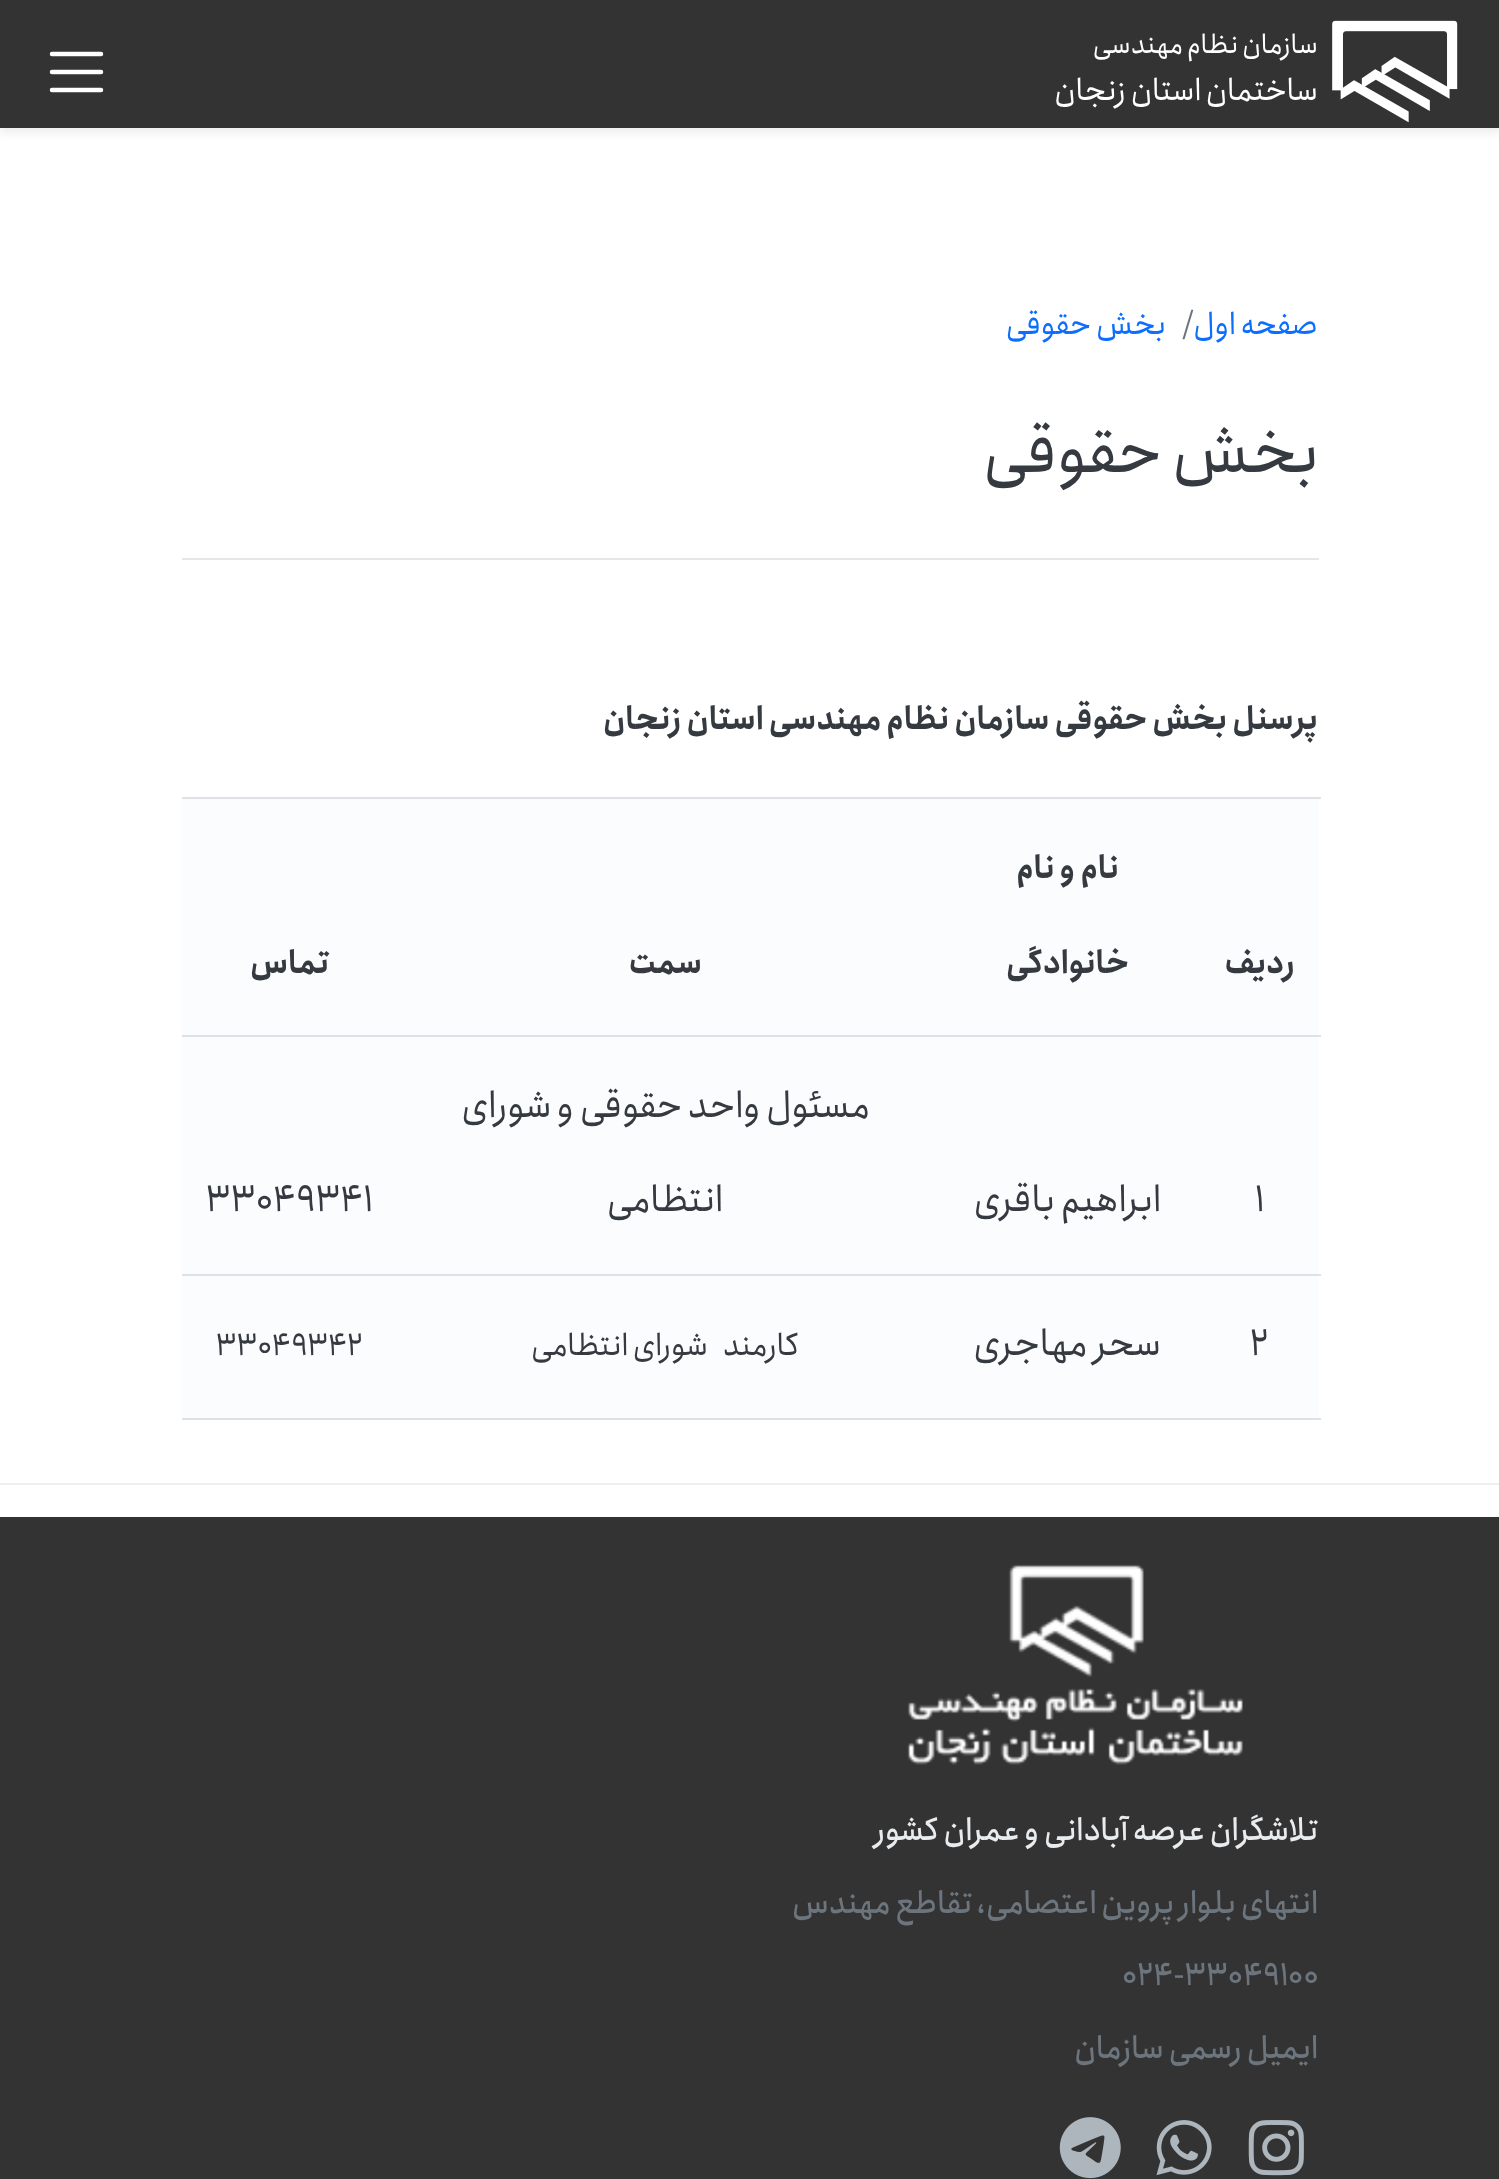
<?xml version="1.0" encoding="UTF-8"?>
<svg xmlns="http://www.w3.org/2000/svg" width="1499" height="2179">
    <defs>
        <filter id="blur1" x="-50%" y="-200%" width="200%" height="500%"><feGaussianBlur stdDeviation="4"/></filter>
    </defs>
    <rect width="100%" height="100%" fill="#FFFFFF"/>
    <rect x="0" y="5" width="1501" height="128" fill="#000000" fill-opacity="0.07" filter="url(#blur1)"/>
    <rect x="0" y="0" width="1499" height="128" fill="#333333"/>
    <image x="1332" y="20" width="126" height="103" href="img_01.png"/>
    <text x="1318" y="53" font-family="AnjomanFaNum" font-size="27.5" direction="rtl" fill="#FFFFFF">سازمان نظام مهندسی</text>
    <text x="1318" y="100" font-family="AnjomanFaNum" font-size="31.5" direction="rtl" fill="#FFFFFF">ساختمان استان زنجان</text>
    <path d="M 52 54 H 101 M 52 72 H 101 M 52 90 H 101" fill="none" stroke="#FFFFFF" stroke-width="4.5" stroke-linecap="round"/>
    <text x="1318" y="334" font-family="AnjomanFaNum" font-size="31.5" direction="rtl" fill="#0D6EFD">صفحه اول</text>
    <text x="1182" y="334" font-family="AnjomanFaNum" font-size="31.5" fill="#6C757D">/</text>
    <text x="1166" y="334" font-family="AnjomanFaNum" font-size="31.5" direction="rtl" fill="#0D6EFD">بخش حقوقی</text>
    <rect x="182" y="558" width="1137" height="2" fill="#E6E6E6"/>
    <text x="1319" y="472" font-family="AnjomanFaNum" font-size="66" direction="rtl" fill="#343A40">بخش حقوقی</text>
    <text x="1318" y="729" font-family="AnjomanFaNum" font-size="31.5" font-weight="700" direction="rtl" fill="#343A40">پرسنل بخش حقوقی سازمان نظام مهندسی استان زنجان</text>
    <rect x="182" y="799" width="1137" height="619" fill="#FBFCFD"/>
    <text x="1295" y="973" font-family="AnjomanFaNum" font-size="31.5" font-weight="700" direction="rtl" fill="#343A40">ردیف</text>
    <text x="1119" y="878" font-family="AnjomanFaNum" font-size="31.5" font-weight="700" direction="rtl" fill="#343A40">نام و نام</text>
    <text x="1129" y="973" font-family="AnjomanFaNum" font-size="31.5" font-weight="700" direction="rtl" fill="#343A40">خانوادگی</text>
    <text x="702" y="973" font-family="AnjomanFaNum" font-size="31.5" font-weight="700" direction="rtl" fill="#343A40">سمت</text>
    <rect x="182" y="797" width="1139" height="2" fill="#DEE2E6"/>
    <text x="329" y="973" font-family="AnjomanFaNum" font-size="31.5" font-weight="700" direction="rtl" fill="#343A40">تماس</text>
    <text x="1255" y="1211" font-family="AnjomanFaNum" font-size="37.75" fill="#343A40">1</text>
    <text x="1161" y="1211" font-family="AnjomanFaNum" font-size="37.75" direction="rtl" fill="#343A40">ابراهیم باقری</text>
    <text x="870" y="1117" font-family="AnjomanFaNum" font-size="37.75" direction="rtl" fill="#343A40">مسئول واحد حقوقی و شورای</text>
    <text x="723" y="1211" font-family="AnjomanFaNum" font-size="37.75" direction="rtl" fill="#343A40">انتظامی</text>
    <rect x="182" y="1035" width="1139" height="2" fill="#DEE2E6"/>
    <text x="206" y="1211" font-family="AnjomanFaNum" font-size="37.75" fill="#343A40">33049341</text>
    <text x="1250" y="1355" font-family="AnjomanFaNum" font-size="37.75" fill="#343A40">2</text>
    <text x="1161" y="1355" font-family="AnjomanFaNum" font-size="37.75" direction="rtl" fill="#343A40">سحر مهاجری</text>
    <text x="799" y="1355" font-family="AnjomanFaNum" font-size="31.5" direction="rtl" fill="#343A40">کارمند</text>
    <text x="708" y="1355" font-family="AnjomanFaNum" font-size="31.5" direction="rtl" fill="#343A40">شورای انتظامی</text>
    <rect x="182" y="1274" width="1139" height="2" fill="#DEE2E6"/>
    <rect x="182" y="1418" width="1139" height="2" fill="#DEE2E6"/>
    <text x="216" y="1355" font-family="AnjomanFaNum" font-size="31.5" fill="#343A40">33049342</text>
    <rect x="0" y="1483" width="1499" height="2" fill="#EDEFF1"/>
    <rect x="0" y="1517" width="1499" height="662" fill="#333333"/>
    <image x="907" y="1564" width="336" height="201" href="img_02.png"/>
    <text x="1318" y="1840" font-family="AnjomanFaNum" font-size="31.5" font-weight="500" direction="rtl" fill="#E9ECEF">تلاشگران عرصه آبادانی و عمران کشور</text>
    <text x="1318" y="1913" font-family="AnjomanFaNum" font-size="31.5" font-weight="500" direction="rtl" fill="#6C757D">انتهای بلوار پروین اعتصامی، تقاطع مهندس</text>
    <text x="1122" y="1985" font-family="AnjomanFaNum" font-size="31.5" font-weight="500" fill="#6C757D">024-33049100</text>
    <text x="1318" y="2058" font-family="AnjomanFaNum" font-size="31.5" font-weight="500" direction="rtl" fill="#6C757D">ایمیل رسمی سازمان</text>
    <image x="1248" y="2120" width="56" height="56" href="img_03.png"/>
    <image x="1156" y="2120" width="56" height="56" href="img_04.png"/>
    <image x="1059" y="2117" width="62" height="62" href="img_05.png"/>
</svg>
